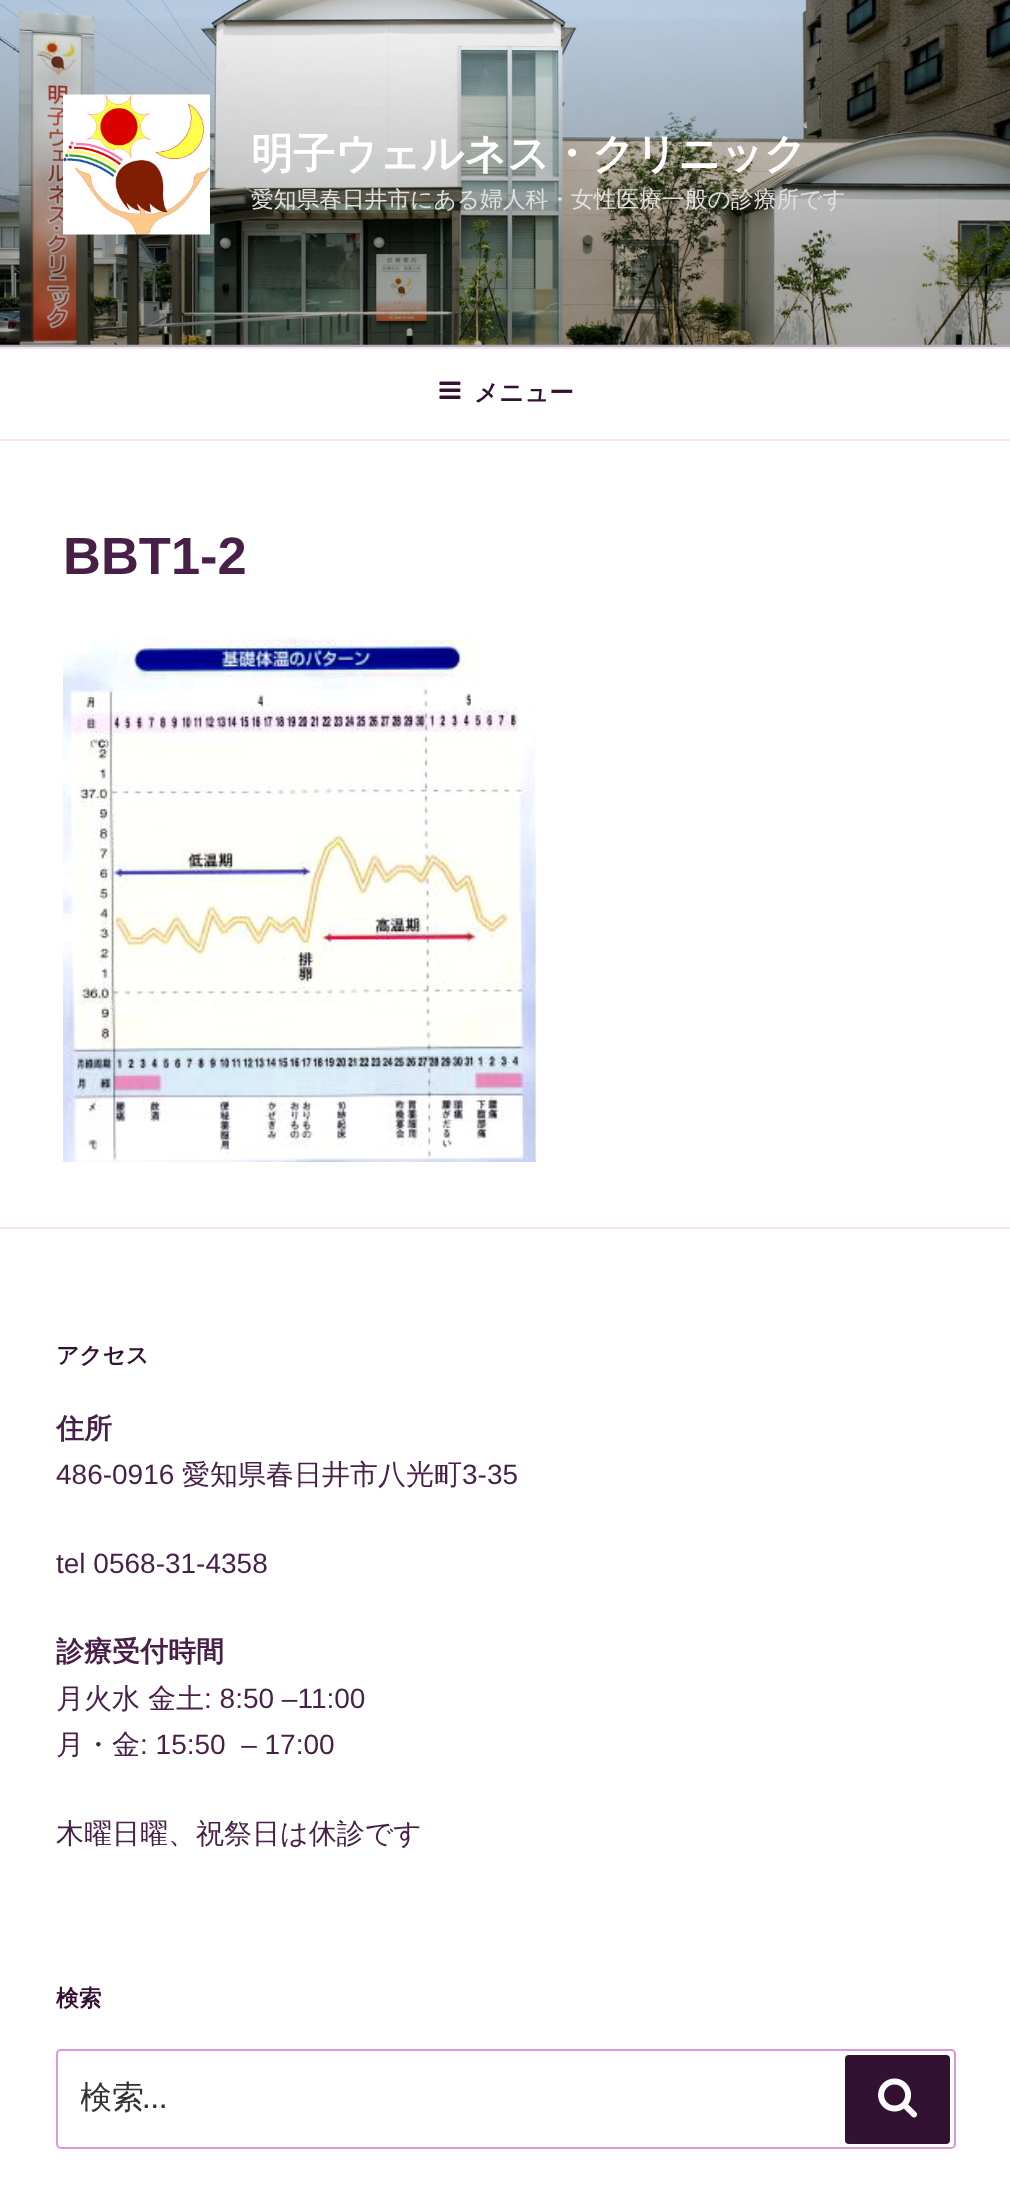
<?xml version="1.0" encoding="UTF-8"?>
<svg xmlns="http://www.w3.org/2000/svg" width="1010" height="2192">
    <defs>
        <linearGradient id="g1" gradientUnits="userSpaceOnUse" x1="506" y1="0" x2="506" y2="347"><stop offset="0" stop-color="#000000" stop-opacity="0"/><stop offset="0.75" stop-color="#000000" stop-opacity="0.3"/><stop offset="1" stop-color="#000000" stop-opacity="0.3"/></linearGradient>
        <clipPath id="clip1"><rect x="81" y="2077" width="843" height="42"/></clipPath>
    </defs>
    <rect width="100%" height="100%" fill="#FFFFFF"/>
    <rect x="0" y="344" width="1010" height="3" fill="#FCF7FC"/>
    <image x="0" y="0" width="1010" height="345" href="img_01.png"/>
    <rect x="0" y="19" width="1010" height="328" fill="url(#g1)"/>
    <image x="63" y="94" width="147" height="141" href="img_02.png"/>
    <text x="251" y="168" font-family="WenQuanYi Zen Hei" font-size="42" font-weight="700" fill="#FFFFFF">明子ウェルネス・クリニック</text>
    <text x="251" y="207" font-family="WenQuanYi Zen Hei" font-size="22.75" font-weight="500" fill="#E0E0DE">愛知県春日井市にある婦人科・女性医療一般の診療所です</text>
    <rect x="0" y="347" width="1010" height="2" fill="#F6E4F6"/>
    <rect x="0" y="439" width="1010" height="2" fill="#F6E4F6"/>
    <image x="439" y="381" width="22" height="18" href="img_03.png"/>
    <text x="474" y="401" font-family="WenQuanYi Zen Hei" font-size="24.5" font-weight="700" fill="#321132">メニュー</text>
    <text x="63" y="574" font-family="Liberation Sans" font-size="52.5" font-weight="700" fill="#471F47">BBT1-2</text>
    <image x="63" y="637" width="474" height="525" href="img_04.png"/>
    <rect x="0" y="1227" width="1010" height="2" fill="#F6E4F6"/>
    <text x="56" y="1363" font-family="WenQuanYi Zen Hei" font-size="22.75" font-weight="700" fill="#321132">アクセス</text>
    <text x="56" y="1438" font-family="WenQuanYi Zen Hei" font-size="28" font-weight="700" fill="#471F47">住所</text>
    <text x="56" y="1484" font-family="Liberation Sans" font-size="28" fill="#471F47">486-0916</text>
    <text x="182" y="1484" font-family="WenQuanYi Zen Hei" font-size="28" font-weight="500" fill="#471F47">愛知県春日井市八光町</text>
    <text x="462" y="1484" font-family="Liberation Sans" font-size="28" fill="#471F47">3-35</text>
    <text x="56" y="1573" font-family="Liberation Sans" font-size="28" fill="#471F47">tel 0568-31-4358</text>
    <text x="56" y="1661" font-family="WenQuanYi Zen Hei" font-size="28" font-weight="700" fill="#471F47">診療受付時間</text>
    <text x="56" y="1708" font-family="WenQuanYi Zen Hei" font-size="28" font-weight="500" fill="#471F47">月火水</text>
    <text x="148" y="1708" font-family="WenQuanYi Zen Hei" font-size="28" font-weight="500" fill="#471F47">金土</text>
    <text x="204" y="1708" font-family="Liberation Sans" font-size="28" fill="#471F47">: 8:50 –11:00</text>
    <text x="56" y="1754" font-family="WenQuanYi Zen Hei" font-size="28" font-weight="500" fill="#471F47">月・金</text>
    <text x="140" y="1754" font-family="Liberation Sans" font-size="28" fill="#471F47" xml:space="preserve">: 15:50  – 17:00</text>
    <text x="56" y="1843" font-family="WenQuanYi Zen Hei" font-size="28" font-weight="500" fill="#471F47">木曜日曜、祝祭日は休診です</text>
    <text x="56" y="2006" font-family="WenQuanYi Zen Hei" font-size="22.75" font-weight="700" fill="#321132">検索</text>
    <rect x="57" y="2050" width="898" height="98" rx="4" fill="none" stroke="#DD98DD" stroke-width="2"/>
    <g clip-path="url(#clip1)">
        <text x="80" y="2108" font-family="WenQuanYi Zen Hei" font-size="32" font-weight="500" fill="#333333">検索</text>
    </g>
    <text x="143" y="2108" font-family="Libre Franklin" font-size="32" fill="#333333">…</text>
    <rect x="845" y="2055" width="105" height="89" rx="4" fill="#321132"/>
    <image x="878" y="2078" width="39" height="40" href="img_05.png"/>
</svg>
